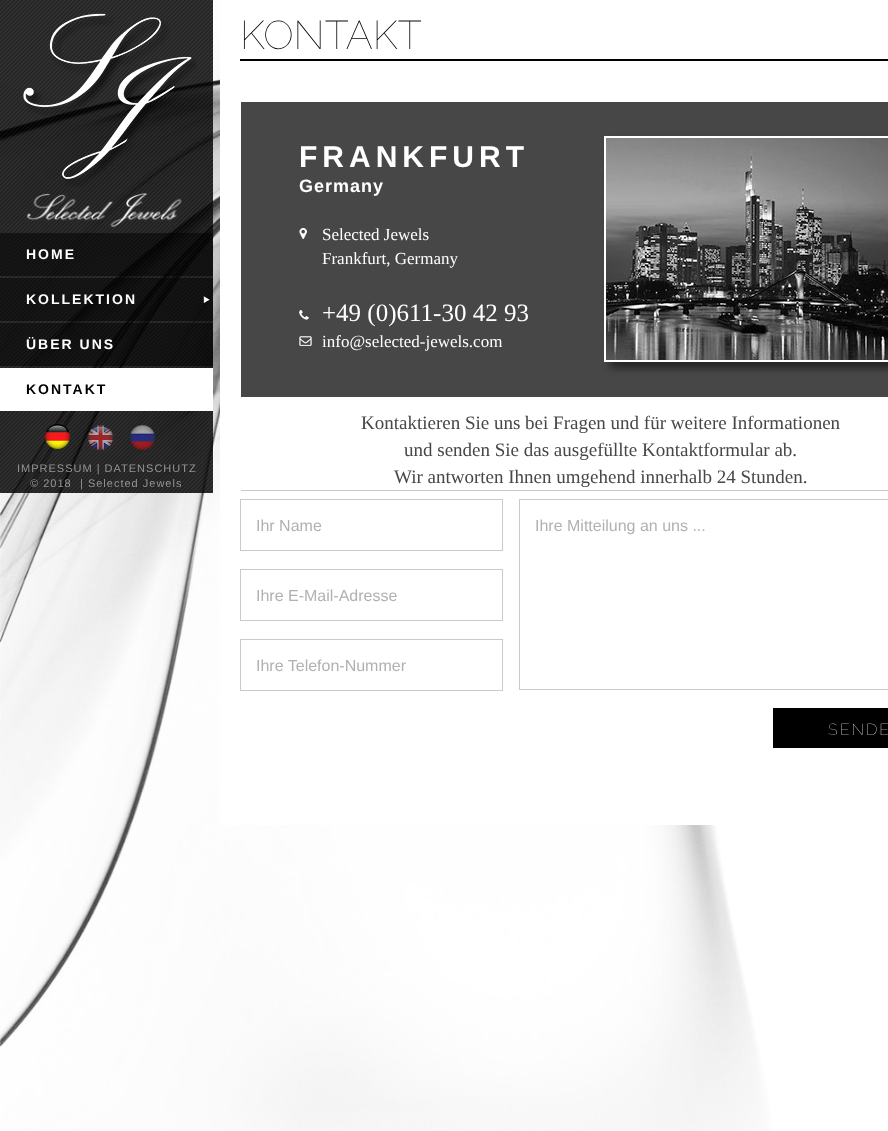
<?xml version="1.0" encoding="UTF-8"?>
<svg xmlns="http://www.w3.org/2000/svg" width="888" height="1131">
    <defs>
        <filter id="blur1" x="-50%" y="-200%" width="200%" height="500%"><feGaussianBlur stdDeviation="4"/></filter>
    </defs>
    <rect width="100%" height="100%" fill="#FFFFFF"/>
    <image x="0" y="0" width="888" height="1131" href="img_01.png"/>
    <rect x="0" y="0" width="213" height="493" fill="#000000" fill-opacity="0.85"/>
    <image x="0" y="0" width="213" height="493" href="img_02.png"/>
    <image x="23" y="13" width="174" height="174" href="img_03.png"/>
    <image x="26" y="193" width="156" height="34" href="img_04.png"/>
    <rect x="0" y="233" width="213" height="43" fill="#000000" fill-opacity="0.5"/>
    <text x="26" y="259" font-family="Liberation Sans" font-size="14" font-weight="700" letter-spacing="2" fill="#FFFFFF">HOME</text>
    <rect x="0" y="278" width="213" height="43" fill="#000000" fill-opacity="0.5"/>
    <text x="26" y="304" font-family="Liberation Sans" font-size="14" font-weight="700" letter-spacing="2" fill="#FFFFFF">KOLLEKTION</text>
    <image x="203" y="296" width="7" height="7" href="img_05.png"/>
    <rect x="0" y="323" width="213" height="43" fill="#000000" fill-opacity="0.5"/>
    <text x="26" y="349" font-family="Liberation Sans" font-size="14" font-weight="700" letter-spacing="2" fill="#FFFFFF">ÜBER UNS</text>
    <rect x="0" y="368" width="213" height="43" fill="#FFFFFF"/>
    <text x="26" y="394" font-family="Liberation Sans" font-size="14" font-weight="700" letter-spacing="2" fill="#000000">KONTAKT</text>
    <image x="45" y="424" width="25" height="25" href="img_06.png"/>
    <image x="88" y="425" width="25" height="25" href="img_07.png"/>
    <image x="130" y="425" width="25" height="25" href="img_08.png"/>
    <text x="17" y="472" font-family="Liberation Sans" font-size="11" letter-spacing="1" fill="#959595">IMPRESSUM | DATENSCHUTZ</text>
    <text x="30" y="487" font-family="Liberation Sans" font-size="11" letter-spacing="1" fill="#959595">© 2018</text>
    <text x="80" y="487" font-family="Liberation Sans" font-size="11" letter-spacing="1" fill="#959595">| Selected Jewels</text>
    <rect x="220" y="0" width="668" height="825" fill="#FFFFFF"/>
    <rect x="240" y="59" width="648" height="2" fill="#000000"/>
    <text x="240" y="49" font-family="Raleway" font-size="40" font-weight="100" fill="#000000">KONTAKT</text>
    <rect x="241" y="102" width="647" height="295" fill="#474747"/>
    <text x="299" y="167" font-family="Liberation Sans" font-size="30" font-weight="700" letter-spacing="5" fill="#FFFFFF">FRANKFURT</text>
    <text x="299" y="192" font-family="Liberation Sans" font-size="18" font-weight="700" letter-spacing="1" fill="#FFFFFF">Germany</text>
    <image x="299" y="228" width="8" height="11" href="img_09.png"/>
    <image x="299" y="310" width="10" height="10" href="img_10.png"/>
    <image x="299" y="336" width="13" height="10" href="img_11.png"/>
    <text font-family="Liberation Serif" font-size="17" fill="#FFFFFF">
        <tspan x="322" y="240">Selected Jewels</tspan>
        <tspan x="322" y="264">Frankfurt, Germany</tspan>
    </text>
    <text x="322" y="321" font-family="Liberation Serif" font-size="25" fill="#FFFFFF">+49 (0)611-30 42 93</text>
    <text x="322" y="347" font-family="Liberation Serif" font-size="17" fill="#FFFFFF">info@selected-jewels.com</text>
    <rect x="610" y="142" width="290" height="226" fill="#000000" fill-opacity="0.5" filter="url(#blur1)"/>
    <rect x="605" y="137" width="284" height="224" fill="none" stroke="#FFFFFF" stroke-width="2"/>
    <image x="606" y="138" width="282" height="222" href="img_12.png"/>
    <rect x="241" y="490" width="647" height="1" fill="#CACACA"/>
    <text x="361" y="429" font-family="Liberation Serif" font-size="19" fill="#474747">Kontaktieren Sie uns bei Fragen und für weitere Informationen</text>
    <text x="404" y="456" font-family="Liberation Serif" font-size="19" fill="#474747">und senden Sie das ausgefüllte Kontaktformular ab.</text>
    <text x="394" y="483" font-family="Liberation Serif" font-size="19" fill="#474747">Wir antworten Ihnen umgehend innerhalb 24 Stunden.</text>
    <rect x="240.5" y="499.5" width="262" height="51" fill="none" stroke="#CACACA"/>
    <text x="256" y="531" font-family="Liberation Sans" font-size="16" fill="#B1B1B1">Ihr Name</text>
    <rect x="519.5" y="499.5" width="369" height="190" fill="none" stroke="#CACACA"/>
    <text x="535" y="531" font-family="Liberation Sans" font-size="16" fill="#B1B1B1">Ihre Mitteilung an uns ...</text>
    <rect x="240.5" y="569.5" width="262" height="51" fill="none" stroke="#CACACA"/>
    <text x="256" y="601" font-family="Liberation Sans" font-size="16" fill="#B1B1B1">Ihre E-Mail-Adresse</text>
    <rect x="240.5" y="639.5" width="262" height="51" fill="none" stroke="#CACACA"/>
    <text x="256" y="671" font-family="Liberation Sans" font-size="16" fill="#B1B1B1">Ihre Telefon-Nummer</text>
    <rect x="773" y="708" width="115" height="40" fill="#000000"/>
    <text x="828" y="735" font-family="Raleway" font-size="16" font-weight="100" letter-spacing="2" fill="#FFFFFF">SENDE</text>
</svg>
